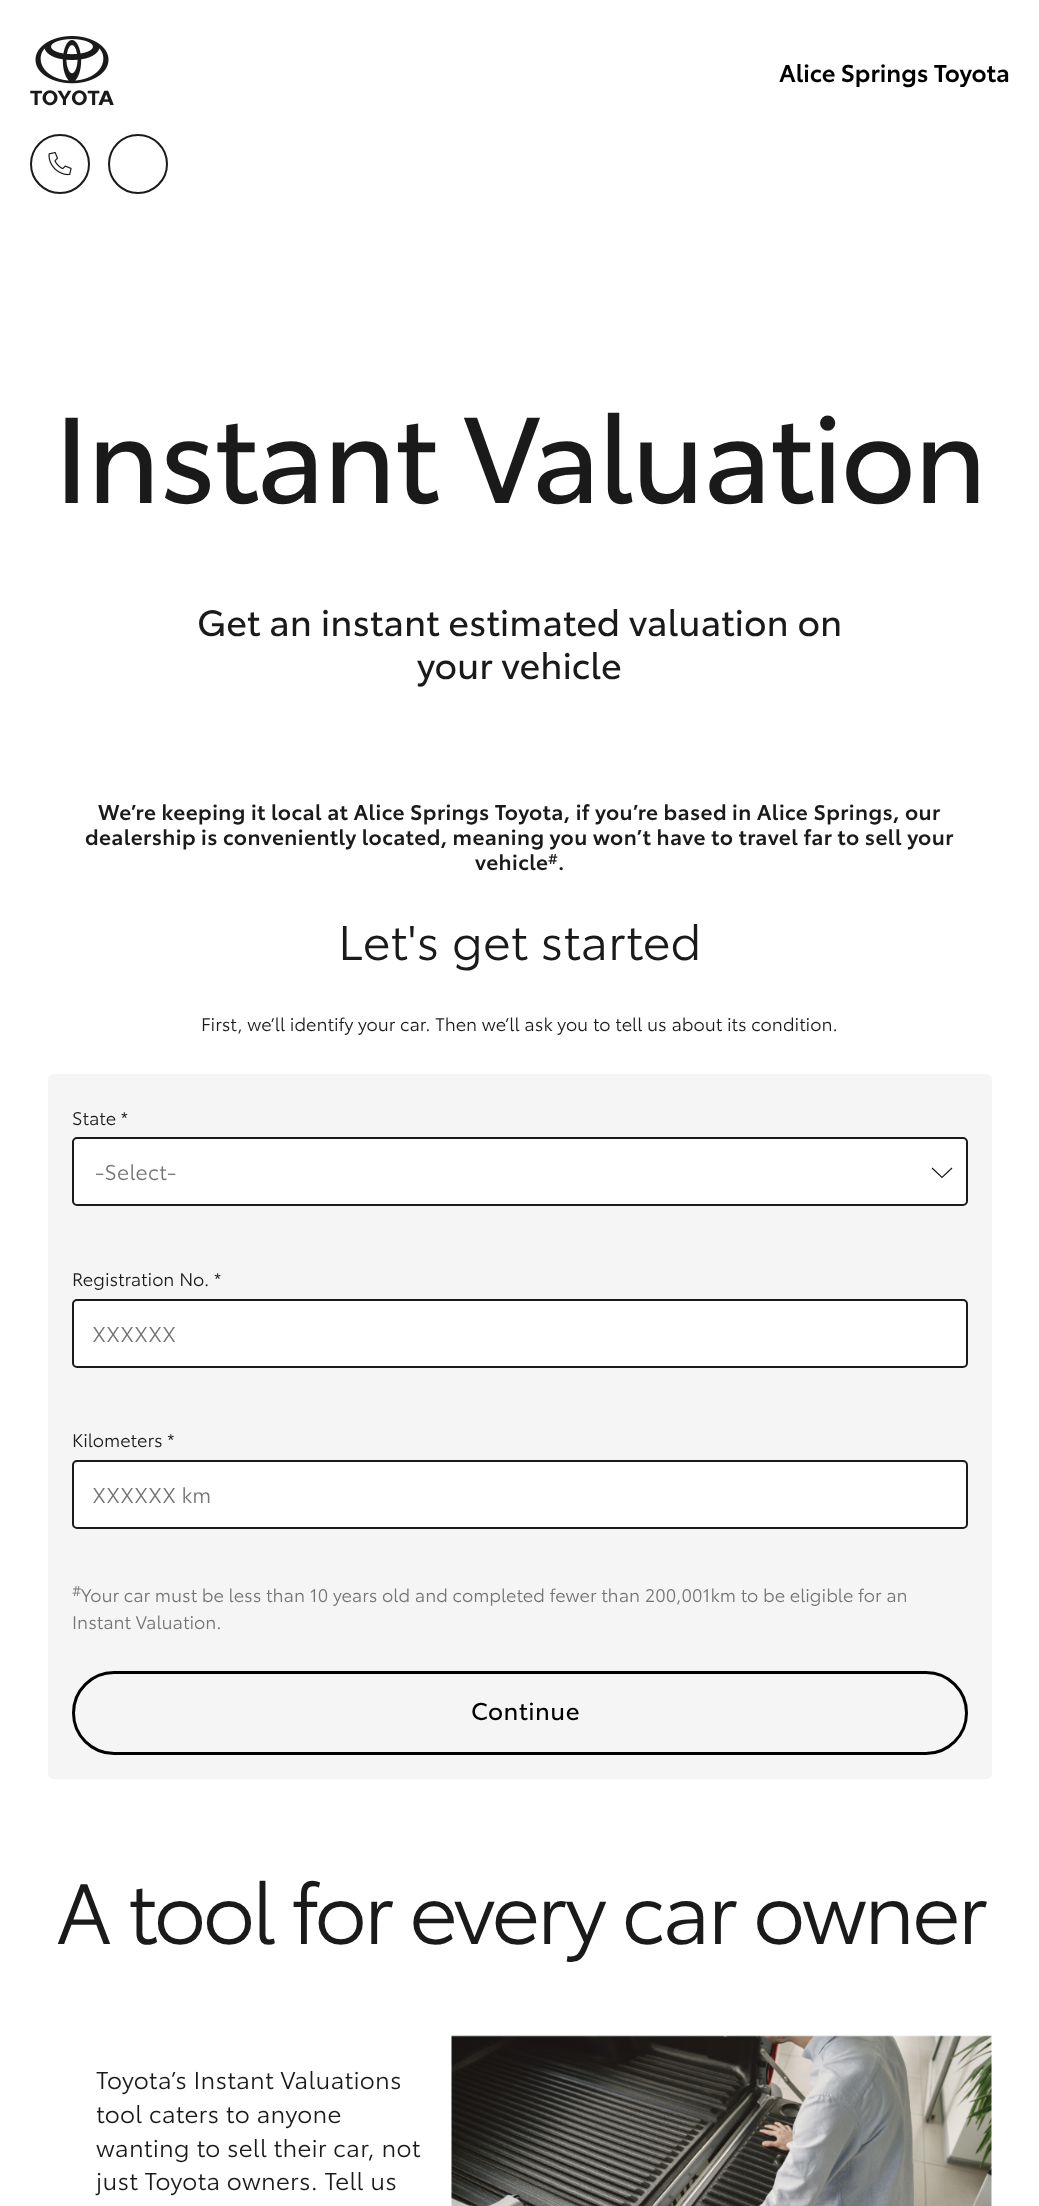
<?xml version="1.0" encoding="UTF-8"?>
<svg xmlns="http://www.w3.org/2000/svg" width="1039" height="2206">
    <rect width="100%" height="100%" fill="#FFFFFF"/>
    <image x="30" y="36" width="84" height="70" href="img_01.png"/>
    <text x="779" y="82" font-family="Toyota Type" font-size="24" font-weight="600" fill="#000000">Alice Springs Toyota</text>
    <image x="48" y="152" width="24" height="24" href="img_02.png"/>
    <circle cx="60" cy="164" r="29" fill="none" stroke="#1A1A1A" stroke-width="2"/>
    <circle cx="138" cy="164" r="29" fill="none" stroke="#1A1A1A" stroke-width="2"/>
    <text x="54" y="503" font-family="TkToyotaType" font-size="120" letter-spacing="-2.4" fill="#1A1A1A">Instant Valuation</text>
    <text x="197" y="636" font-family="TkToyotaType" font-size="36" fill="#1A1A1A">Get an instant estimated valuation on</text>
    <text x="417" y="679" font-family="TkToyotaType" font-size="36" fill="#1A1A1A">your vehicle</text>
    <text x="98" y="820" font-family="Toyota Type" font-size="21" font-weight="600" letter-spacing="0.42" fill="#1A1A1A">We’re keeping it local at Alice Springs Toyota, if you’re based in Alice Springs, our</text>
    <text x="85" y="845" font-family="Toyota Type" font-size="21" font-weight="600" letter-spacing="0.42" fill="#1A1A1A">dealership is conveniently located, meaning you won’t have to travel far to sell your</text>
    <text x="475" y="870" font-family="Toyota Type" font-size="21" font-weight="600" letter-spacing="0.42" fill="#1A1A1A">vehicle</text>
    <text x="548" y="864" font-family="Toyota Type" font-size="14" font-weight="600" fill="#1A1A1A">#</text>
    <text x="558" y="870" font-family="Toyota Type" font-size="21" font-weight="600" letter-spacing="0.42" fill="#1A1A1A">.</text>
    <text x="338" y="960" font-family="Toyota Type" font-size="48" fill="#1A1A1A">Let's get started</text>
    <text x="201" y="1031" font-family="Toyota Type" font-size="18" fill="#1A1A1A">First, we’ll identify your car. Then we’ll ask you to tell us about its condition.</text>
    <rect x="48" y="1074" width="944" height="705" rx="6" fill="#F5F5F5"/>
    <text x="72" y="1125" font-family="Toyota Type" font-size="18" fill="#1A1A1A">State *</text>
    <rect x="72" y="1137" width="896" height="69" fill="#FFFFFF"/>
    <rect x="73" y="1138" width="894" height="67" rx="4" fill="none" stroke="#1A1A1A" stroke-width="2"/>
    <text x="95" y="1180" font-family="Toyota Type" font-size="21" letter-spacing="0.25" fill="#757575">-Select-</text>
    <path d="M 952 1168 L 942 1177.5 L 932 1168" fill="none" stroke="#1A1A1A" stroke-width="1.2"/>
    <text x="72" y="1286" font-family="Toyota Type" font-size="18" fill="#1A1A1A">Registration No. *</text>
    <rect x="73" y="1300" width="894" height="67" rx="4" fill="#FFFFFF" stroke="#1A1A1A" stroke-width="2"/>
    <text x="92" y="1342" font-family="Toyota Type" font-size="21" fill="#757575">XXXXXX</text>
    <text x="72" y="1447" font-family="Toyota Type" font-size="18" fill="#1A1A1A">Kilometers *</text>
    <rect x="73" y="1461" width="894" height="67" rx="4" fill="#FFFFFF" stroke="#1A1A1A" stroke-width="2"/>
    <text x="92" y="1503" font-family="Toyota Type" font-size="21" fill="#757575">XXXXXX km</text>
    <text x="72" y="1596" font-family="Toyota Type" font-size="14" fill="#757575">#</text>
    <text x="81" y="1602" font-family="Toyota Type" font-size="18" fill="#757575">Your car must be less than 10 years old and completed fewer than 200,001km to be eligible for an</text>
    <text x="72" y="1629" font-family="Toyota Type" font-size="18" fill="#757575">Instant Valuation.</text>
    <rect x="73.5" y="1672.5" width="893" height="81" rx="40.5" fill="none" stroke="#000000" stroke-width="3"/>
    <text x="471" y="1720" font-family="TkToyotaType" font-size="24" letter-spacing="0.5" fill="#000000">Continue</text>
    <text x="56" y="1944" font-family="Toyota Type" font-size="84" letter-spacing="-3.35" fill="#1A1A1A">A tool for every car owner</text>
    <text font-family="Toyota Type" font-size="24" letter-spacing="0.25" fill="#1A1A1A">
        <tspan x="96" y="2089">Toyota’s Instant Valuations</tspan>
        <tspan x="96" y="2123">tool caters to anyone</tspan>
        <tspan x="96" y="2157">wanting to sell their car, not</tspan>
        <tspan x="96" y="2190">just Toyota owners. Tell us</tspan>
    </text>
    <image x="451" y="2035" width="541" height="171" href="img_03.png"/>
</svg>
